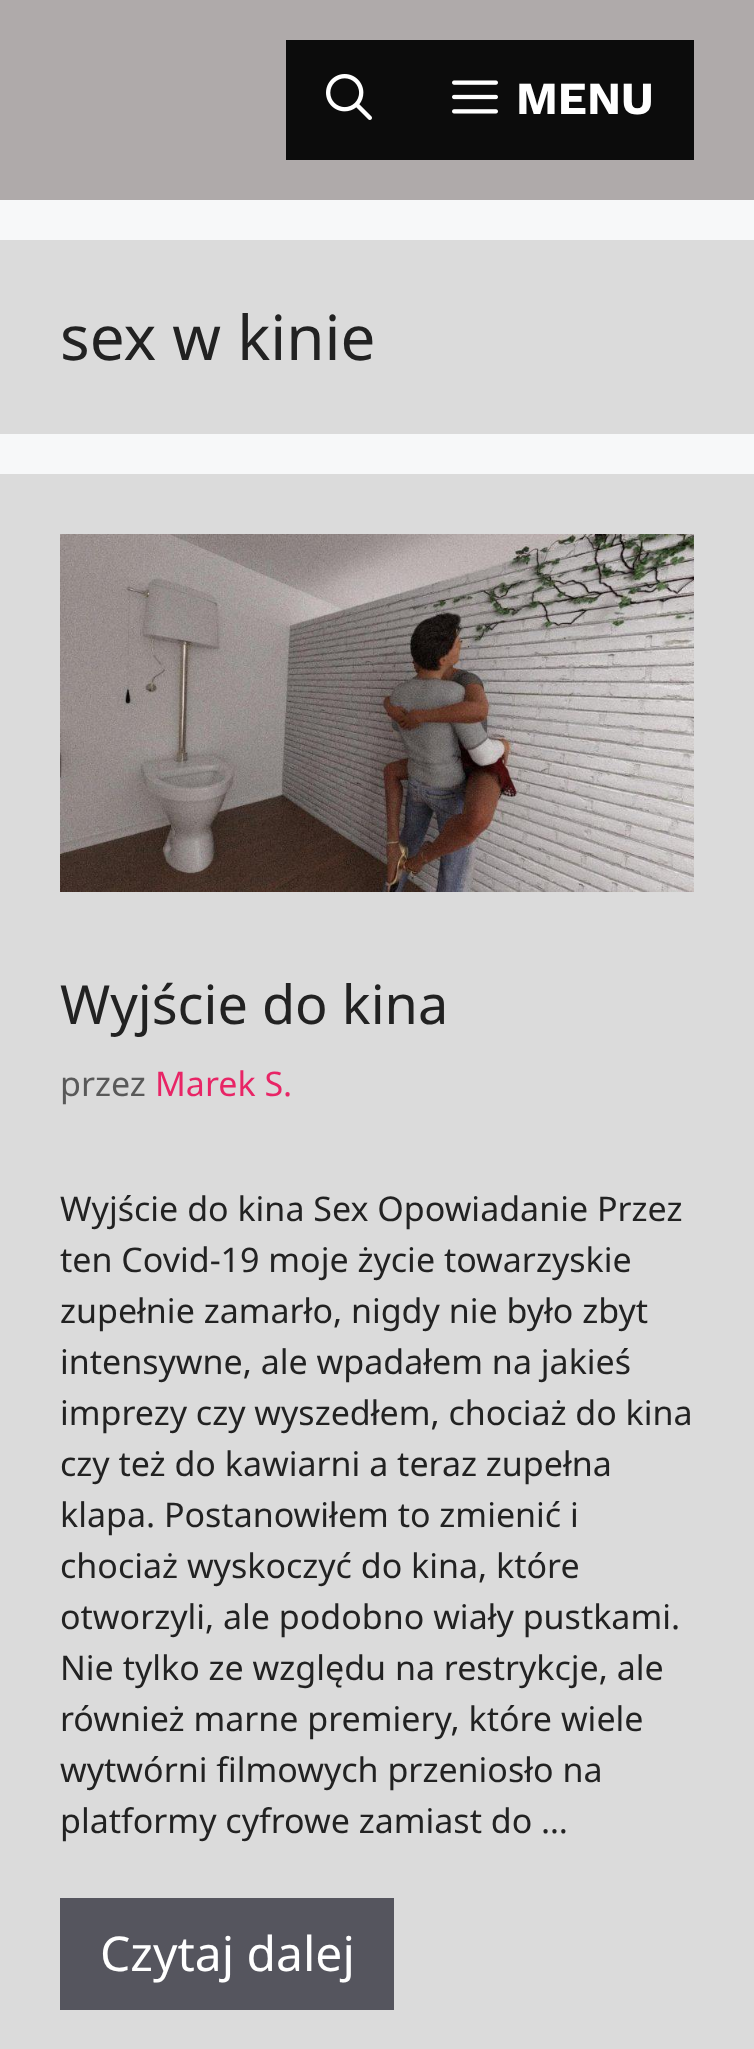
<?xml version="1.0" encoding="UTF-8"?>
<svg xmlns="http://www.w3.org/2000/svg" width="754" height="2049">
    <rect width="100%" height="100%" fill="#F7F8F9"/>
    <rect x="0" y="0" width="754" height="200" fill="#AFAAAA"/>
    <rect x="286" y="40" width="408" height="120" fill="#0C0C0C"/>
    <image x="326" y="74" width="46" height="46" href="img_01.png"/>
    <image x="452" y="80" width="46" height="34" href="img_02.png"/>
    <text x="516" y="114" font-family="Work Sans" font-size="46" font-weight="700" fill="#FFFFFF">MENU</text>
    <rect x="0" y="240" width="754" height="194" fill="#DBDBDB"/>
    <text x="60" y="360" font-family="Noto Sans" font-size="62" fill="#222222">sex w kinie</text>
    <rect x="0" y="474" width="754" height="1575" fill="#DBDBDB"/>
    <image x="60" y="534" width="634" height="358" href="img_03.png"/>
    <text x="60" y="1024" font-family="Noto Sans" font-size="54" fill="#222222">Wyjście do kina</text>
    <text x="60" y="1096" font-family="Noto Sans" font-size="34" fill="#595959">przez</text>
    <text x="155" y="1096" font-family="Noto Sans" font-size="34" fill="#E82566">Marek S.</text>
    <text font-family="Noto Sans" font-size="34" fill="#222222">
        <tspan x="60" y="1221">Wyjście do kina Sex Opowiadanie Przez</tspan>
        <tspan x="60" y="1272">ten Covid-19 moje życie towarzyskie</tspan>
        <tspan x="60" y="1323">zupełnie zamarło, nigdy nie było zbyt</tspan>
        <tspan x="60" y="1374">intensywne, ale wpadałem na jakieś</tspan>
        <tspan x="60" y="1425">imprezy czy wyszedłem, chociaż do kina</tspan>
        <tspan x="60" y="1476">czy też do kawiarni a teraz zupełna</tspan>
        <tspan x="60" y="1527">klapa. Postanowiłem to zmienić i</tspan>
        <tspan x="60" y="1578">chociaż wyskoczyć do kina, które</tspan>
        <tspan x="60" y="1629">otworzyli, ale podobno wiały pustkami.</tspan>
        <tspan x="60" y="1680">Nie tylko ze względu na restrykcje, ale</tspan>
        <tspan x="60" y="1731">również marne premiery, które wiele</tspan>
        <tspan x="60" y="1782">wytwórni filmowych przeniosło na</tspan>
        <tspan x="60" y="1833">platformy cyfrowe zamiast do …</tspan>
    </text>
    <rect x="60" y="1898" width="334" height="112" fill="#55555E"/>
    <text x="100" y="1971" font-family="Noto Sans" font-size="48" fill="#FFFFFF">Czytaj dalej</text>
</svg>
